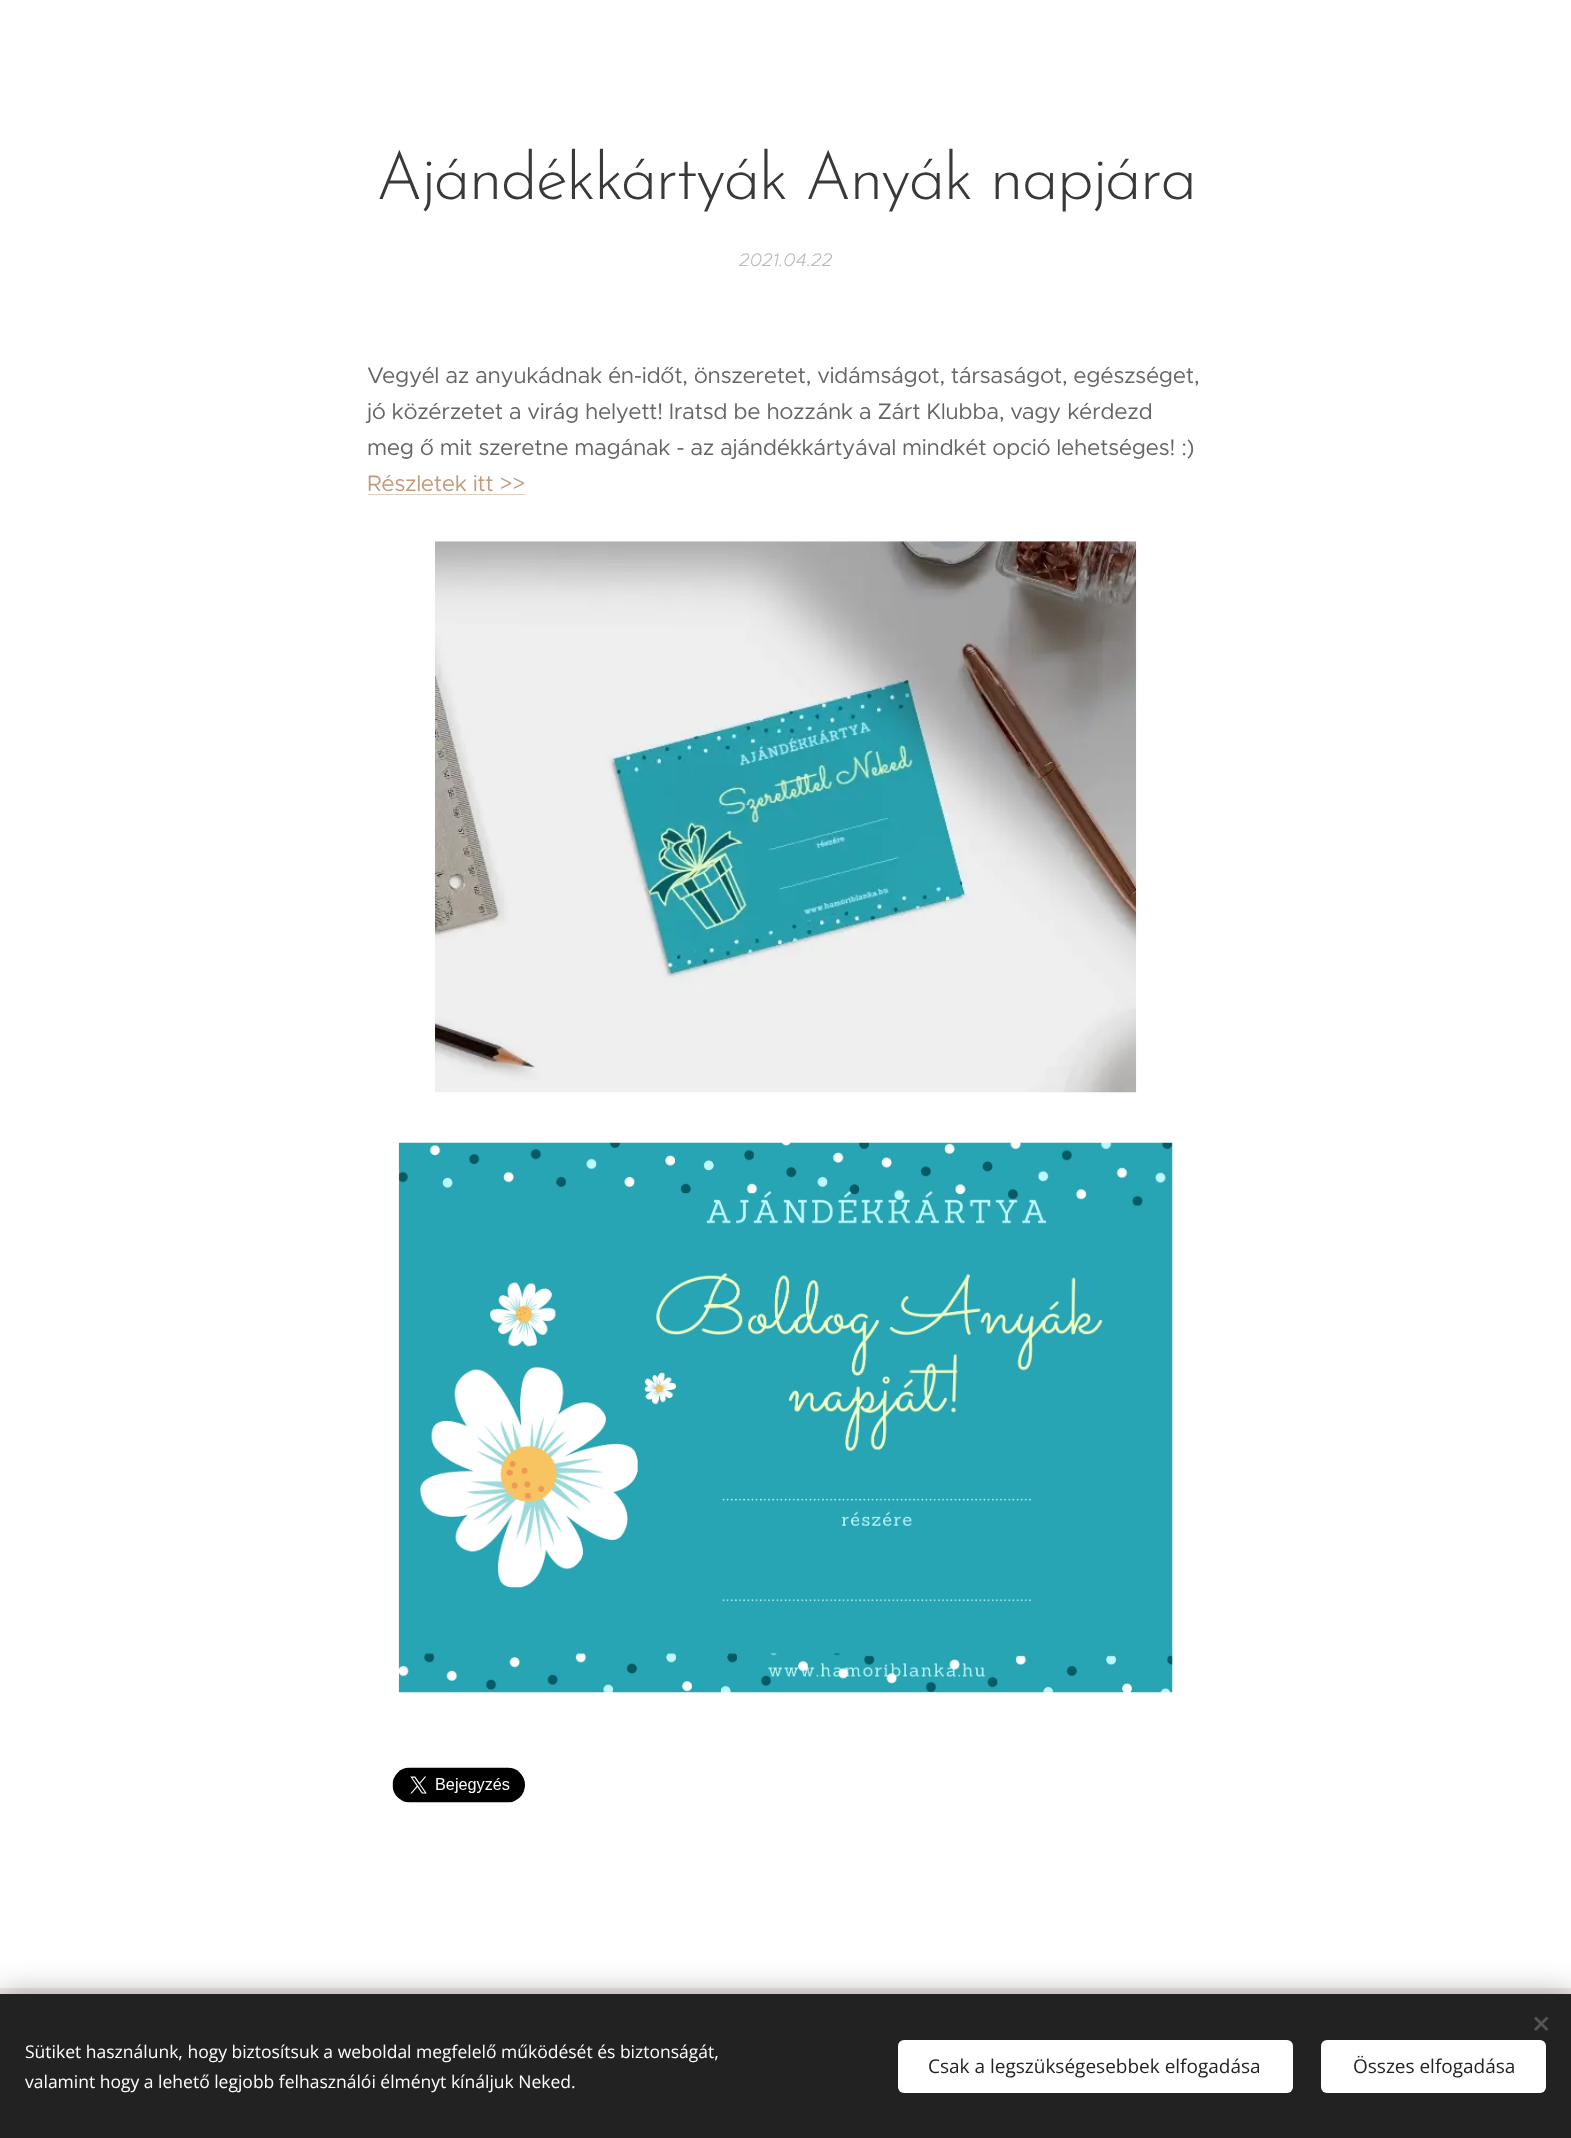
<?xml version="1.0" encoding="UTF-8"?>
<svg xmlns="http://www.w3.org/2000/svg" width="1571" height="2138">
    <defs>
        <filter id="blur1" x="-50%" y="-200%" width="200%" height="500%"><feGaussianBlur stdDeviation="15.5"/></filter>
    </defs>
    <rect width="100%" height="100%" fill="#FFFFFF"/>
    <text x="376" y="199" font-family="Josefin Sans" font-size="66.25" font-weight="300" letter-spacing="-2" fill="#393939">Ajándékkártyák Anyák napjára</text>
    <text x="739" y="266" font-family="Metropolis" font-size="18.25" font-weight="300" font-style="italic" fill="#BABABA">2021.04.22</text>
    <text font-family="Metropolis" font-size="22.5" letter-spacing="-0.4" fill="#666666">
        <tspan x="367" y="383">Vegyél az anyukádnak én-időt, önszeretet, vidámságot, társaságot, egészséget,</tspan>
        <tspan x="367" y="419">jó közérzetet a virág helyett! Iratsd be hozzánk a Zárt Klubba, vagy kérdezd</tspan>
        <tspan x="367" y="455">meg ő mit szeretne magának - az ajándékkártyával mindkét opció lehetséges! :)</tspan>
    </text>
    <text x="367" y="491" font-family="Metropolis" font-size="22.5" letter-spacing="-0.4" fill="#C39B7C">Részletek itt &gt;&gt;</text>
    <rect x="368" y="494" width="157" height="1" fill="#E1CDBE"/>
    <image x="435" y="541" width="702" height="552" href="img_01.png"/>
    <image x="398" y="1142" width="775" height="551" href="img_02.png"/>
    <image x="392" y="1767" width="133" height="36" href="img_03.png"/>
    <rect x="0" y="1988" width="1571" height="6" fill="#EFEBE9"/>
    <rect x="0" y="1994" width="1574" height="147" fill="#000000" fill-opacity="0.33" filter="url(#blur1)"/>
    <rect x="0" y="1994" width="1571" height="144" fill="#222222"/>
    <path d="M 1534 2029 L 1546.5 2016.5 L 1548.5 2018.5 L 1536 2031 Z" fill="#555555"/>
    <path d="M 1536 2016.5 L 1548.5 2029 L 1546.5 2031 L 1534 2018.5 Z" fill="#555555"/>
    <text font-family="Open Sans" font-size="17.5" fill="#FFFFFF">
        <tspan x="25" y="2058">Sütiket használunk, hogy biztosítsuk a weboldal megfelelő működését és biztonságát,</tspan>
        <tspan x="25" y="2088">valamint hogy a lehető legjobb felhasználói élményt kínáljuk Neked.</tspan>
    </text>
    <rect x="898" y="2040" width="395" height="53" rx="6" fill="#FFFFFF"/>
    <text x="928" y="2073" font-family="Open Sans" font-size="19" fill="#222222">Csak a legszükségesebbek elfogadása</text>
    <rect x="1321" y="2040" width="225" height="53" rx="6" fill="#FFFFFF"/>
    <text x="1353" y="2073" font-family="Open Sans" font-size="19" fill="#222222">Összes elfogadása</text>
</svg>
